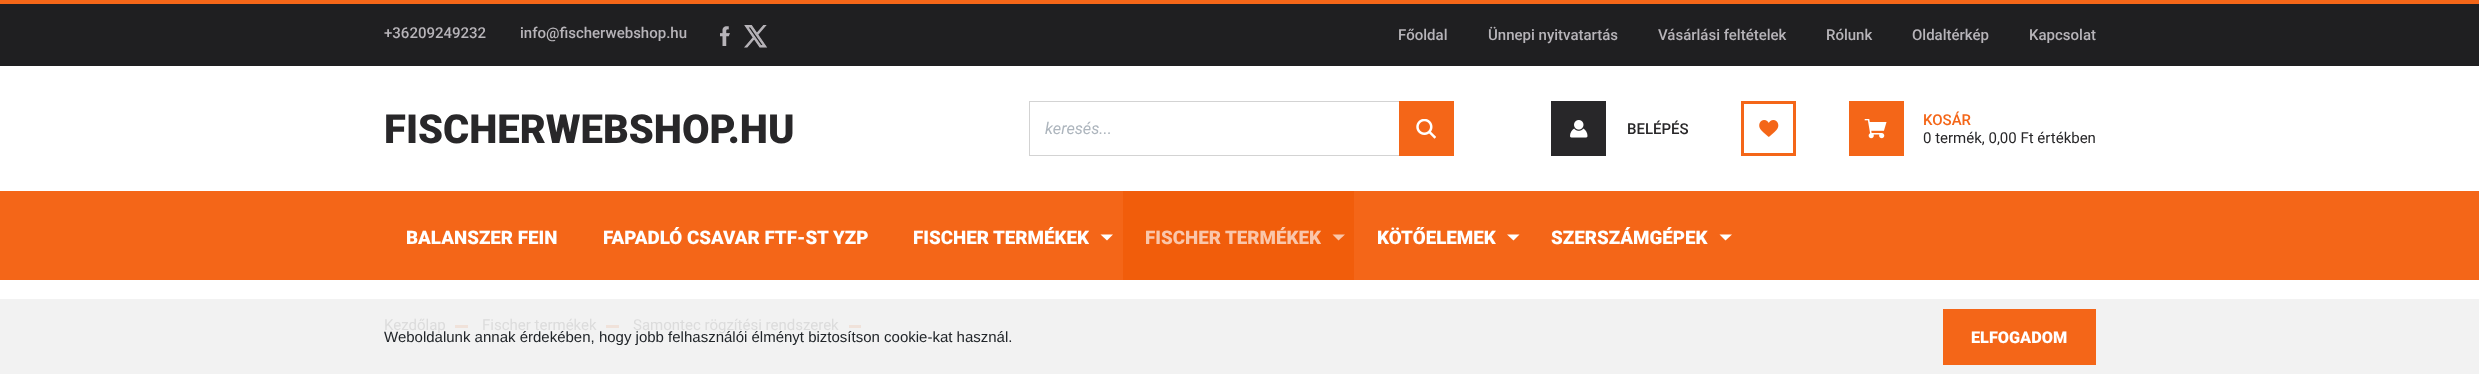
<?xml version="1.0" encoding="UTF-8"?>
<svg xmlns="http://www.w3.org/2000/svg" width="2479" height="374">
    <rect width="100%" height="100%" fill="#FFFFFF"/>
    <rect x="0" y="299" width="2479" height="75" fill="#F2F2F2"/>
    <rect x="0" y="0" width="2479" height="4" fill="#F46618"/>
    <rect x="0" y="4" width="2479" height="62" fill="#1F1F21"/>
    <text x="384" y="38" font-family="Roboto" font-size="15" font-weight="500" fill="#B7B4B9">+36209249232</text>
    <text x="520" y="38" font-family="Roboto" font-size="15" font-weight="500" fill="#B7B4B9">info@fischerwebshop.hu</text>
    <image x="720" y="26" width="10" height="20" href="img_01.png"/>
    <image x="744" y="25" width="24" height="23" href="img_02.png"/>
    <text x="1398" y="40" font-family="Roboto" font-size="15" font-weight="500" fill="#B7B4B9">Főoldal</text>
    <text x="1488" y="40" font-family="Roboto" font-size="15" font-weight="500" fill="#B7B4B9">Ünnepi nyitvatartás</text>
    <text x="1658" y="40" font-family="Roboto" font-size="15" font-weight="500" fill="#B7B4B9">Vásárlási feltételek</text>
    <text x="1826" y="40" font-family="Roboto" font-size="15" font-weight="500" fill="#B7B4B9">Rólunk</text>
    <text x="1912" y="40" font-family="Roboto" font-size="15" font-weight="500" fill="#B7B4B9">Oldaltérkép</text>
    <text x="2029" y="40" font-family="Roboto" font-size="15" font-weight="500" fill="#B7B4B9">Kapcsolat</text>
    <text x="384" y="143" font-family="Roboto" font-size="40" font-weight="900" fill="#282729">FISCHERWEBSHOP.HU</text>
    <rect x="1029.5" y="101.5" width="424" height="54" fill="none" stroke="#D3D3D3"/>
    <text x="1045" y="134" font-family="Roboto" font-size="16.25" font-style="italic" fill="#ADB5BD">keresés...</text>
    <rect x="1399" y="101" width="55" height="55" fill="#F46618"/>
    <image x="1416" y="119" width="20" height="20" href="img_03.png"/>
    <rect x="1551" y="101" width="55" height="55" fill="#282729"/>
    <image x="1570" y="120" width="18" height="18" href="img_04.png"/>
    <text x="1627" y="134" font-family="Roboto" font-size="15" font-weight="500" fill="#282729">BELÉPÉS</text>
    <rect x="1742.5" y="102.5" width="52" height="52" fill="none" stroke="#F46618" stroke-width="3"/>
    <image x="1759" y="120" width="20" height="17" href="img_05.png"/>
    <rect x="1849" y="101" width="55" height="55" fill="#F46618"/>
    <image x="1864" y="119" width="23" height="20" href="img_06.png"/>
    <text x="1923" y="125" font-family="Roboto" font-size="15" font-weight="500" fill="#F46618">KOSÁR</text>
    <text x="1923" y="143" font-family="Roboto" font-size="15" fill="#282729">0 termék, 0,00 Ft értékben</text>
    <rect x="0" y="191" width="2479" height="89" fill="#F46618"/>
    <text x="406" y="244" font-family="Roboto" font-size="18.75" font-weight="900" fill="#FFFFFF">BALANSZER FEIN</text>
    <text x="603" y="244" font-family="Roboto" font-size="18.75" font-weight="900" fill="#FFFFFF">FAPADLÓ CSAVAR FTF-ST YZP</text>
    <text x="913" y="244" font-family="Roboto" font-size="18.75" font-weight="900" fill="#FFFFFF">FISCHER TERMÉKEK</text>
    <path d="M 1100.5 234.5 H 1113 L 1107 240.5 Z" fill="#FFFFFF"/>
    <rect x="1123" y="191" width="231" height="89" fill="#F15D0B"/>
    <text x="1145" y="244" font-family="Roboto" font-size="18.75" font-weight="900" fill="#FAC6AA">FISCHER TERMÉKEK</text>
    <path d="M 1332.5 234.5 H 1345 L 1338.5 240.5 Z" fill="#FAC6AA"/>
    <text x="1377" y="244" font-family="Roboto" font-size="18.75" font-weight="900" fill="#FFFFFF">KÖTŐELEMEK</text>
    <path d="M 1507 234.5 H 1519.5 L 1513.5 240.5 Z" fill="#FFFFFF"/>
    <text x="1551" y="244" font-family="Roboto" font-size="18.75" font-weight="900" fill="#FFFFFF">SZERSZÁMGÉPEK</text>
    <path d="M 1719.5 234.5 H 1732 L 1725.5 240.5 Z" fill="#FFFFFF"/>
    <text x="384" y="330" font-family="Roboto" font-size="15" fill="#DCDCDC">Kezdőlap</text>
    <rect x="455" y="325" width="13" height="3" fill="#F0E2DA"/>
    <text x="482" y="330" font-family="Roboto" font-size="15" fill="#DCDCDC">Fischer termékek</text>
    <rect x="606" y="325" width="13" height="3" fill="#F0E2DA"/>
    <text x="633" y="330" font-family="Roboto" font-size="15" fill="#DCDCDC">Samontec rögzítési rendszerek</text>
    <rect x="849" y="325" width="12" height="3" fill="#F0E2DA"/>
    <text x="384" y="342" font-family="Liberation Sans" font-size="15" fill="#212529">Weboldalunk annak érdekében, hogy jobb felhasználói élményt biztosítson cookie-kat használ.</text>
    <rect x="1943" y="309" width="153" height="56" fill="#F46618"/>
    <text x="1971" y="343" font-family="Roboto" font-size="16.25" font-weight="900" fill="#FFFFFF">ELFOGADOM</text>
</svg>
